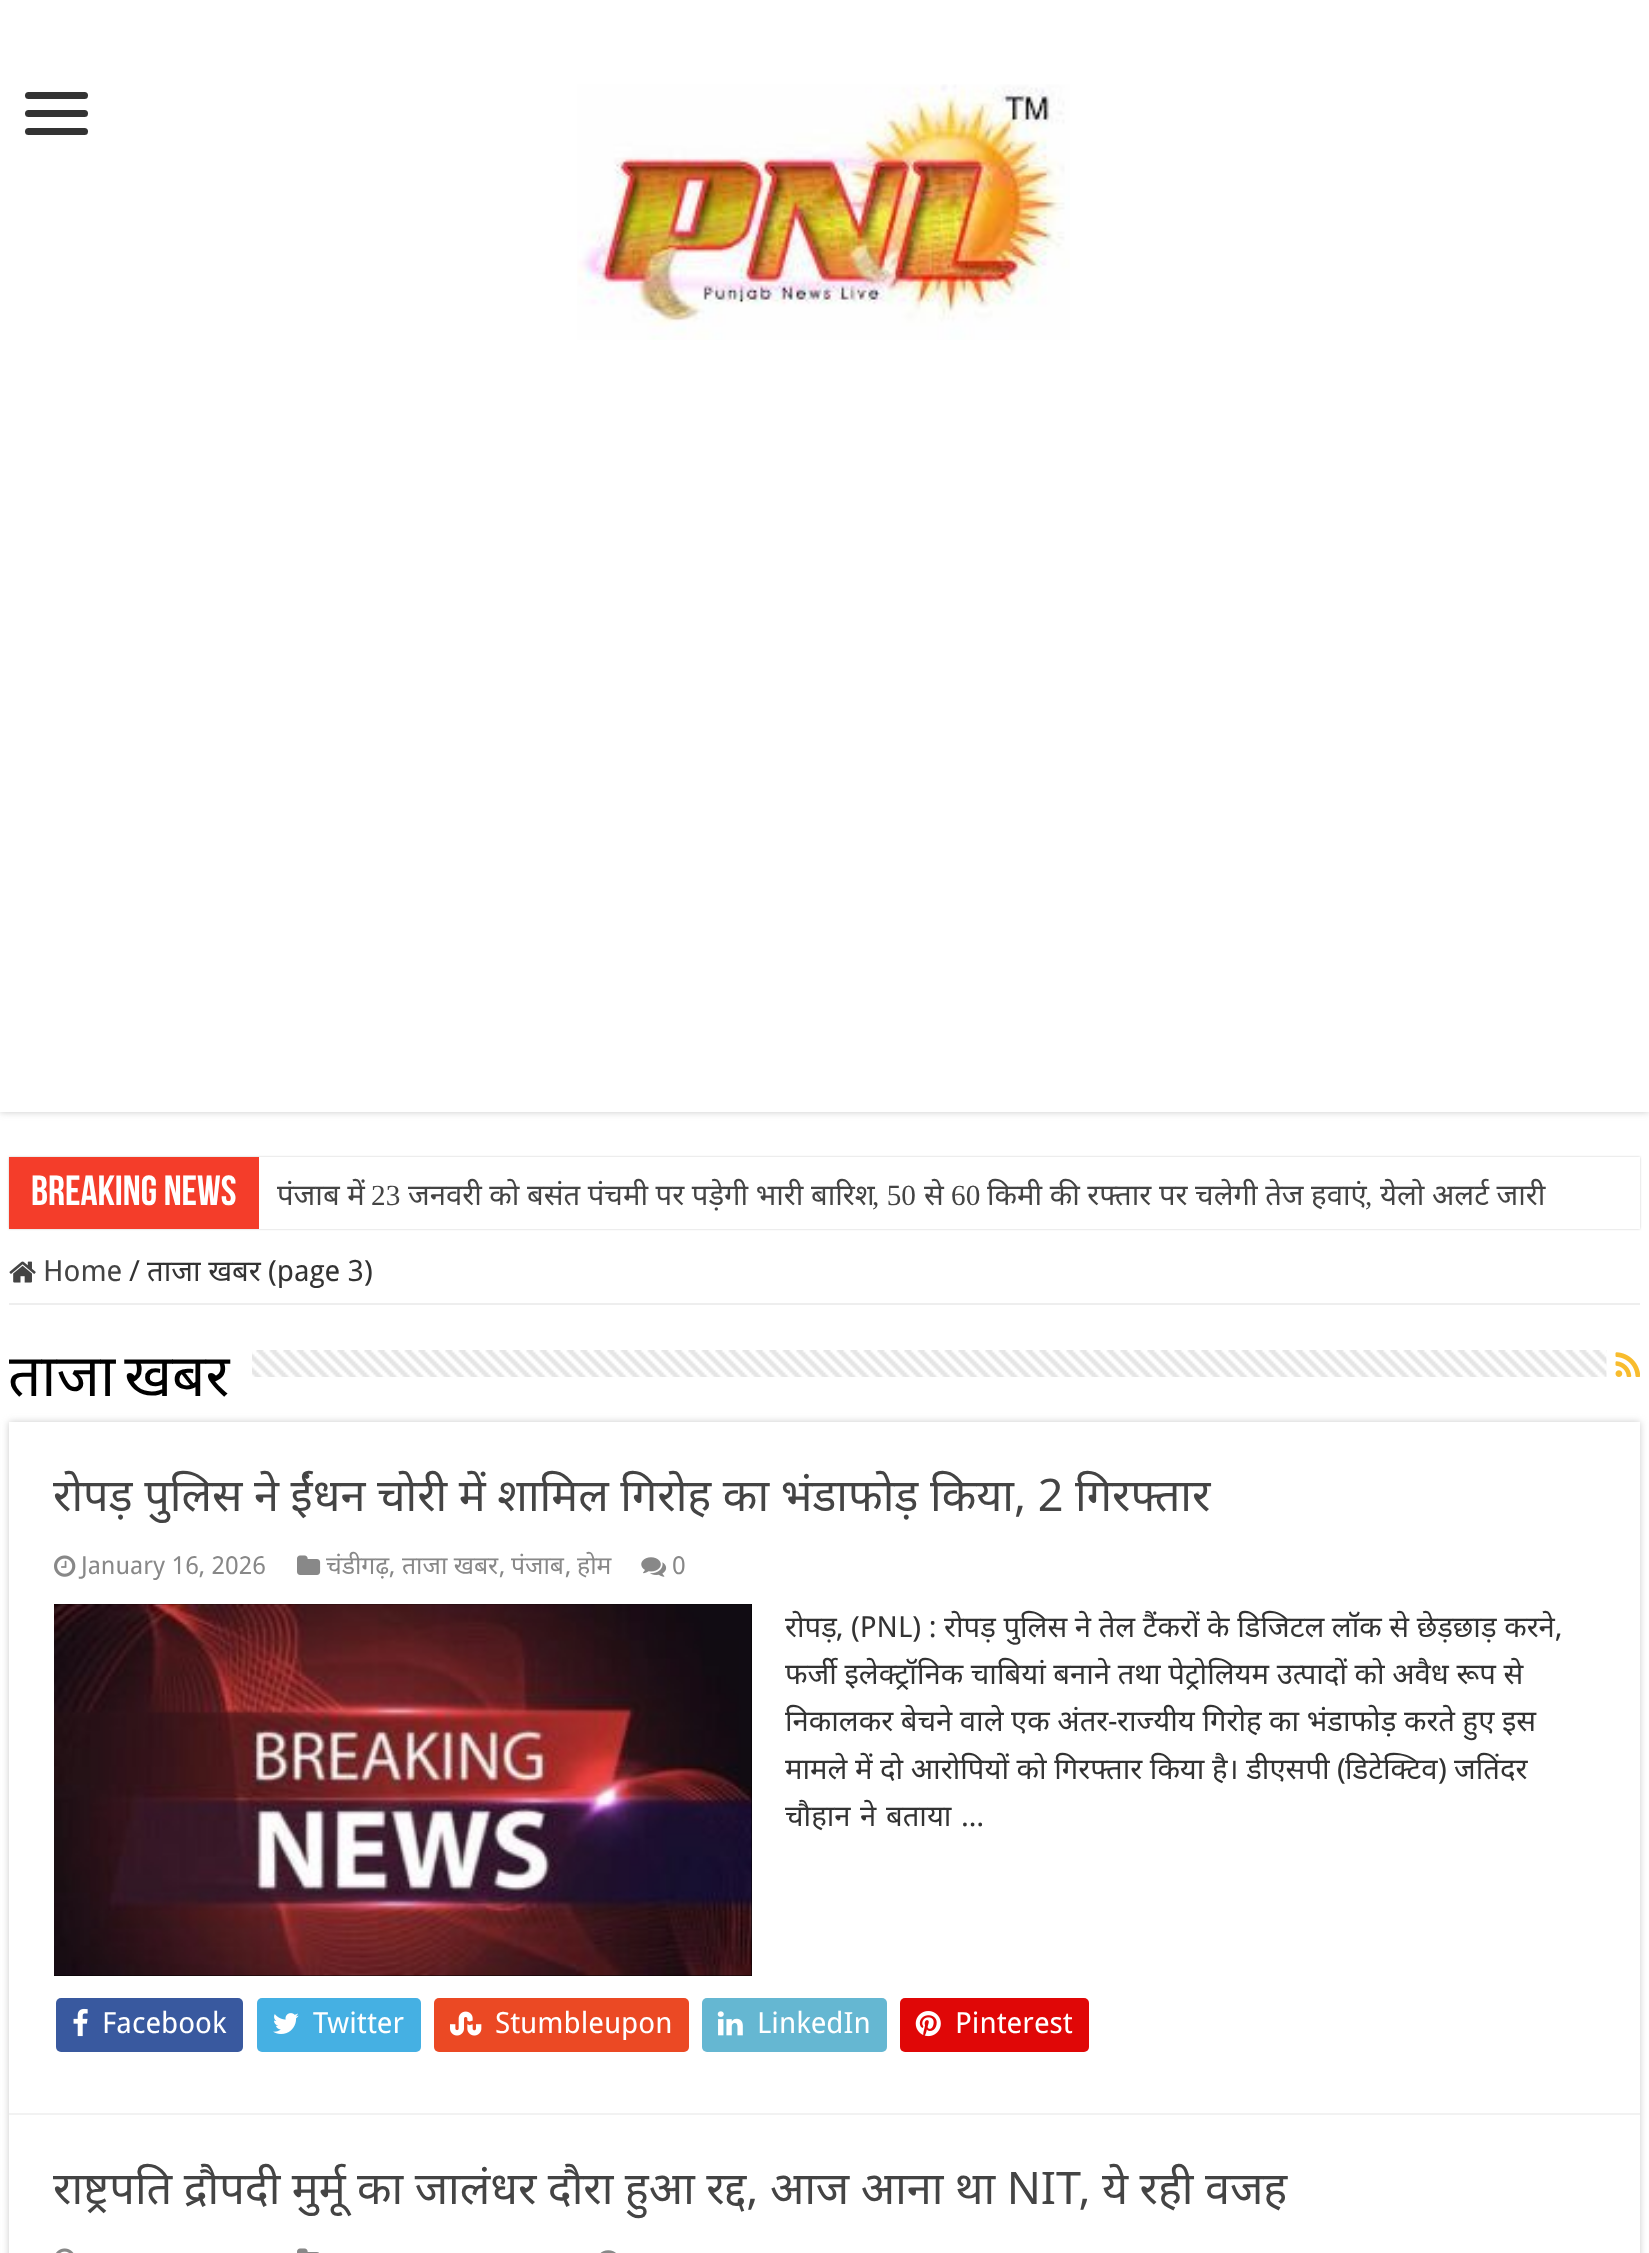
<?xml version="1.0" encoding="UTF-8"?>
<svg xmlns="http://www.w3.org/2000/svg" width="1649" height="2253">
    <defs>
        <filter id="blur1" x="-50%" y="-200%" width="200%" height="500%"><feGaussianBlur stdDeviation="3.5"/></filter>
        <filter id="blur2" x="-50%" y="-200%" width="200%" height="500%"><feGaussianBlur stdDeviation="1"/></filter>
        <clipPath id="clip1"><rect x="9" y="1328" width="1631" height="94"/></clipPath>
        <clipPath id="clip2"><path d="M 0 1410 H 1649 V 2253 H 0 Z M 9 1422 H 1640 V 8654 H 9 Z" clip-rule="evenodd"/></clipPath>
    </defs>
    <rect width="100%" height="100%" fill="#FFFFFF"/>
    <rect x="0" y="0" width="1649" height="1112" fill="#CACACA" filter="url(#blur1)"/>
    <rect x="0" y="0" width="1649" height="1112" fill="#FFFFFF"/>
    <rect x="25" y="92" width="63" height="7" rx="3.5" fill="#333333"/>
    <rect x="25" y="110" width="63" height="7" rx="3.5" fill="#333333"/>
    <rect x="25" y="128" width="63" height="7" rx="3.5" fill="#333333"/>
    <image x="577" y="84" width="493" height="256" href="img_01.png"/>
    <rect x="9" y="1157" width="1631" height="72" fill="#CACACA" filter="url(#blur2)"/>
    <rect x="259" y="1157" width="1381" height="72" fill="#FFFFFF"/>
    <rect x="9" y="1157" width="250" height="72" fill="#F43D2A"/>
    <text x="31" y="1205" font-family="Bebas Neue" font-size="42" font-weight="700" fill="#FFFFFF">Breaking News</text>
    <text x="277" y="1205" font-family="Noto Sans" font-size="29.25" fill="#444444">पंजाब में</text>
    <text x="371" y="1205" font-family="Liberation Serif" font-size="29.25" fill="#444444">23</text>
    <text x="408" y="1205" font-family="Noto Sans" font-size="29.25" fill="#444444">जनवरी को बसंत पंचमी पर पड़ेगी भारी बारिश</text>
    <text x="872" y="1205" font-family="Liberation Serif" font-size="29.25" fill="#444444">, 50</text>
    <text x="924" y="1205" font-family="Noto Sans" font-size="29.25" fill="#444444">से</text>
    <text x="951" y="1205" font-family="Liberation Serif" font-size="29.25" fill="#444444">60</text>
    <text x="987" y="1205" font-family="Noto Sans" font-size="29.25" fill="#444444">किमी की रफ्तार पर चलेगी तेज हवाएं</text>
    <text x="1365" y="1205" font-family="Liberation Serif" font-size="29.25" fill="#444444">,</text>
    <text x="1380" y="1205" font-family="Noto Sans" font-size="29.25" fill="#444444">येलो अलर्ट जारी</text>
    <rect x="9" y="1303" width="1631" height="2" fill="#EEEEEE"/>
    <image x="9" y="1261" width="27" height="22" href="img_02.png"/>
    <text x="43" y="1281" font-family="Droid Sans" font-size="29.25" fill="#444444">Home</text>
    <text x="129" y="1281" font-family="Droid Sans" font-size="29.25" fill="#333333">/</text>
    <text x="147" y="1281" font-family="Noto Sans" font-size="29.25" fill="#333333">ताजा खबर</text>
    <text x="268" y="1281" font-family="Droid Sans" font-size="29.25" fill="#333333">(page 3)</text>
    <g clip-path="url(#clip1)">
        <text x="8" y="1396" word-spacing="-6" font-family="Noto Sans" font-size="58.5" fill="#000000">ताजा खबर</text>
    </g>
    <image x="252" y="1350" width="1355" height="27" href="img_03.png"/>
    <image x="1615" y="1352" width="25" height="25" href="img_04.png"/>
    <g clip-path="url(#clip2)">
        <rect x="9" y="1422" width="1631" height="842" fill="#CACACA" filter="url(#blur1)"/>
    </g>
    <rect x="9" y="2113" width="1631" height="2" fill="#F2F2F2"/>
    <text x="53" y="1511" word-spacing="-0.1" font-family="Noto Sans" font-size="45" fill="#444444">रोपड़ पुलिस ने ईंधन चोरी में शामिल गिरोह का भंडाफोड़ किया, 2 गिरफ्तार</text>
    <image x="54" y="1555" width="22" height="22" href="img_05.png"/>
    <text x="81" y="1574" font-family="Droid Sans" font-size="24.75" fill="#888888">January 16, 2026</text>
    <image x="297" y="1555" width="24" height="20" href="img_06.png"/>
    <text x="326" y="1574" font-family="Noto Sans" font-size="24.75" fill="#888888">चंडीगढ़</text>
    <text x="389" y="1574" font-family="Droid Sans" font-size="24.75" fill="#888888">,</text>
    <text x="402" y="1574" font-family="Noto Sans" font-size="24.75" fill="#888888">ताजा खबर</text>
    <text x="499" y="1574" font-family="Droid Sans" font-size="24.75" fill="#888888">,</text>
    <text x="511" y="1574" font-family="Noto Sans" font-size="24.75" fill="#888888">पंजाब</text>
    <text x="565" y="1574" font-family="Droid Sans" font-size="24.75" fill="#888888">,</text>
    <text x="577" y="1574" font-family="Noto Sans" font-size="24.75" fill="#888888">होम</text>
    <image x="641" y="1557" width="26" height="20" href="img_07.png"/>
    <text x="672" y="1574" font-family="Droid Sans" font-size="24.75" fill="#888888">0</text>
    <rect x="54" y="1604" width="698" height="372" fill="#000000"/>
    <image x="54" y="1604" width="698" height="372" href="img_08.png"/>
    <text x="785" y="1637" font-family="Noto Sans" font-size="29.25" fill="#333333">रोपड़</text>
    <text x="836" y="1637" font-family="Droid Sans" font-size="29.25" fill="#333333">, (PNL) :</text>
    <text x="944" y="1637" font-family="Noto Sans" font-size="29.25" fill="#333333">रोपड़ पुलिस ने तेल टैंकरों के डिजिटल लॉक से छेड़छाड़ करने</text>
    <text x="1555" y="1637" font-family="Droid Sans" font-size="29.25" fill="#333333">,</text>
    <text font-family="Noto Sans" font-size="29.25" fill="#333333">
        <tspan x="785" y="1684">फर्जी इलेक्ट्रॉनिक चाबियां बनाने तथा पेट्रोलियम उत्पादों को अवैध रूप से</tspan>
        <tspan x="785" y="1731">निकालकर बेचने वाले एक अंतर</tspan>
    </text>
    <text x="1108" y="1731" font-family="Droid Sans" font-size="29.25" fill="#333333">-</text>
    <text x="1117" y="1731" font-family="Noto Sans" font-size="29.25" fill="#333333">राज्यीय गिरोह का भंडाफोड़ करते हुए इस</text>
    <text x="785" y="1779" font-family="Noto Sans" font-size="29.25" fill="#333333">मामले में दो आरोपियों को गिरफ्तार किया है। डीएसपी</text>
    <text x="1337" y="1779" font-family="Droid Sans" font-size="29.25" fill="#333333">(</text>
    <text x="1345" y="1779" font-family="Noto Sans" font-size="29.25" fill="#333333">डिटेक्टिव</text>
    <text x="1438" y="1779" font-family="Droid Sans" font-size="29.25" fill="#333333">)</text>
    <text x="1454" y="1779" font-family="Noto Sans" font-size="29.25" fill="#333333">जतिंदर</text>
    <text x="785" y="1826" word-spacing="2" font-family="Noto Sans" font-size="29.25" fill="#333333">चौहान ने बताया …</text>
    <rect x="56" y="1998" width="187" height="54" rx="5" fill="#39599F"/>
    <image x="73" y="2008" width="15" height="29" href="img_09.png"/>
    <text x="102" y="2033" font-family="Droid Sans" font-size="29.25" fill="#FFFFFF">Facebook</text>
    <rect x="257" y="1998" width="164" height="54" rx="5" fill="#45B0E3"/>
    <image x="273" y="2013" width="26" height="21" href="img_10.png"/>
    <text x="313" y="2033" font-family="Droid Sans" font-size="29.25" fill="#FFFFFF">Twitter</text>
    <rect x="434" y="1998" width="255" height="54" rx="5" fill="#EB4924"/>
    <image x="450" y="2011" width="32" height="25" href="img_11.png"/>
    <text x="495" y="2033" font-family="Droid Sans" font-size="29.25" fill="#FFFFFF">Stumbleupon</text>
    <rect x="702" y="1998" width="185" height="54" rx="5" fill="#65B7D2"/>
    <image x="717" y="2011" width="26" height="25" href="img_12.png"/>
    <text x="757" y="2033" font-family="Droid Sans" font-size="29.25" fill="#FFFFFF">LinkedIn</text>
    <rect x="900" y="1998" width="189" height="54" rx="5" fill="#E00707"/>
    <image x="915" y="2011" width="26" height="26" href="img_13.png"/>
    <text x="955" y="2033" font-family="Droid Sans" font-size="29.25" fill="#FFFFFF">Pinterest</text>
    <text x="53" y="2204" word-spacing="-0.25" font-family="Noto Sans" font-size="45" fill="#444444">राष्ट्रपति द्रौपदी मुर्मू का जालंधर दौरा हुआ रद्द, आज आना था NIT, ये रही वजह</text>
    <image x="56" y="2248" width="18" height="5" href="img_14.png"/>
    <image x="297" y="2248" width="22" height="5" href="img_15.png"/>
    <image x="600" y="2250" width="16" height="3" href="img_16.png"/>
</svg>
